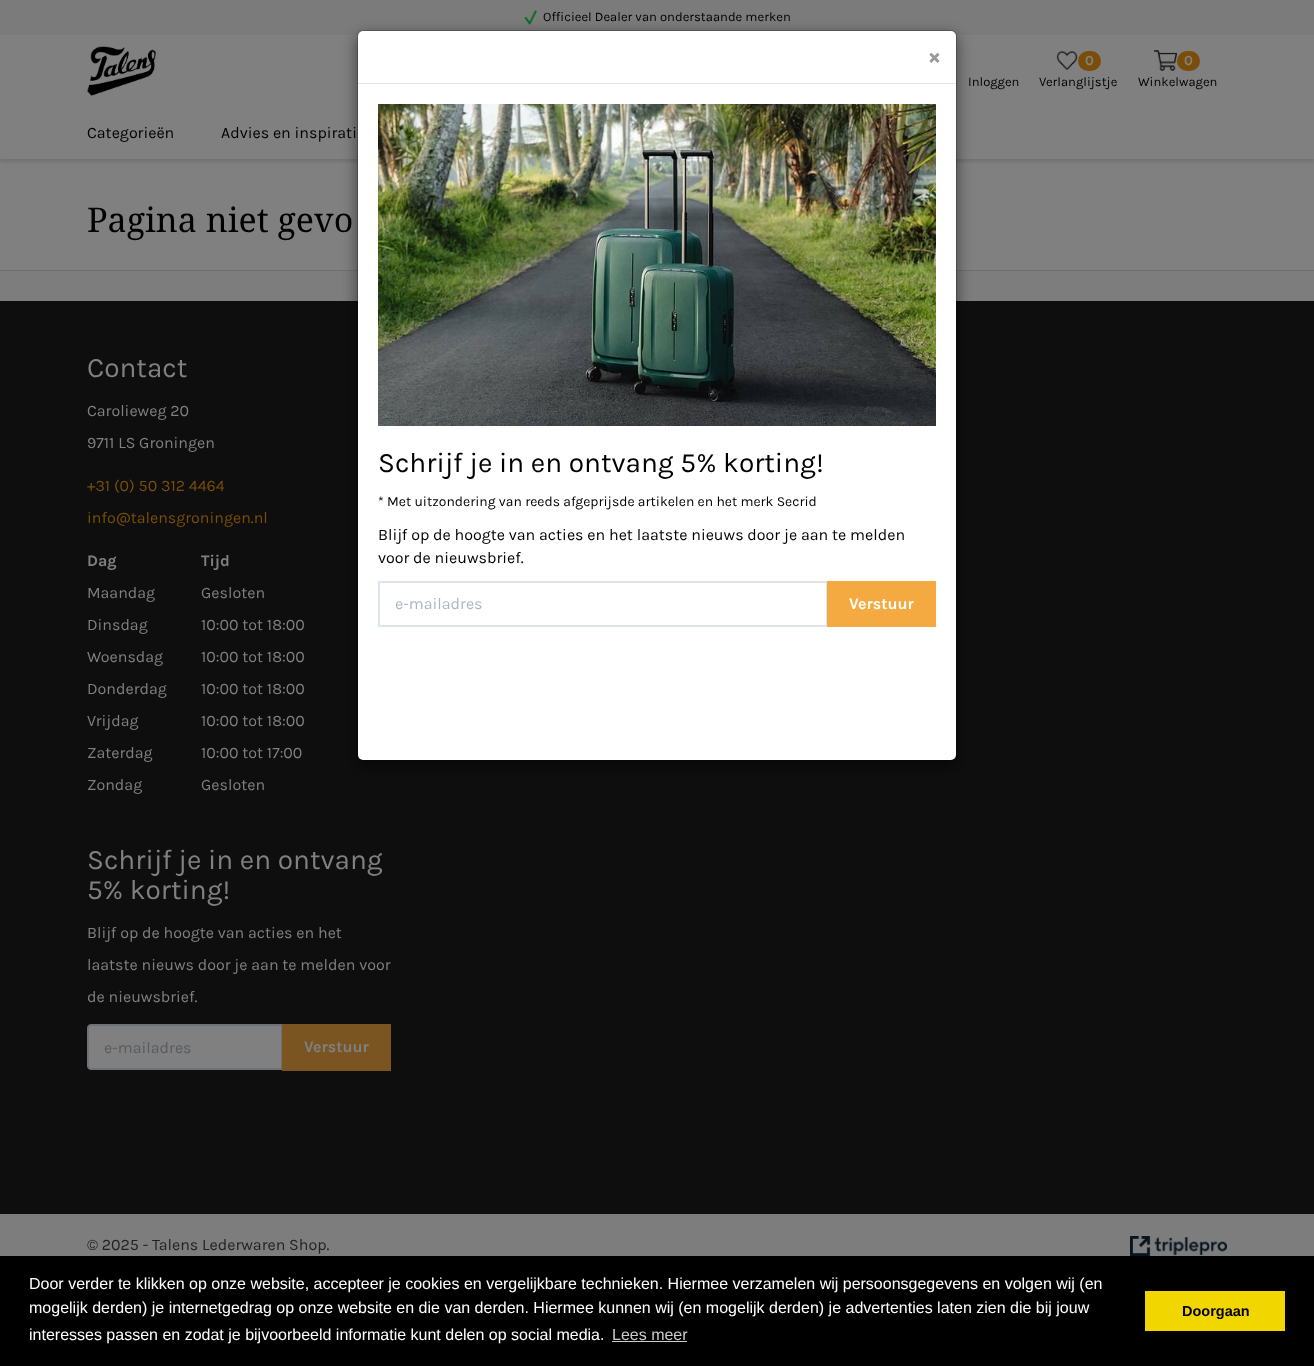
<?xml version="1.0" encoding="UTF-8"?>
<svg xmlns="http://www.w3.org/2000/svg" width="1314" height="1366">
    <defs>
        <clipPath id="clip1"><rect x="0" y="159" width="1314" height="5"/></clipPath>
        <filter id="blur1" x="-50%" y="-200%" width="200%" height="500%"><feGaussianBlur stdDeviation="1.5"/></filter>
        <filter id="blur2" x="-50%" y="-200%" width="200%" height="500%"><feGaussianBlur stdDeviation="7.5"/></filter>
    </defs>
    <rect width="100%" height="100%" fill="#808080"/>
    <rect x="0" y="0" width="1314" height="35" fill="#7B7B7B"/>
    <image x="524" y="10" width="13" height="15" href="img_01.png"/>
    <text x="543" y="21" font-family="Karla" font-size="13" fill="#000000">Officieel Dealer van onderstaande merken</text>
    <image x="87" y="46" width="69" height="50" href="img_02.png"/>
    <text x="968" y="86" font-family="Karla" font-size="13" fill="#000000">Inloggen</text>
    <image x="1056" y="50" width="22" height="21" href="img_03.png"/>
    <rect x="1078" y="51" width="23" height="20" rx="10" fill="#7A4E09"/>
    <text x="1085" y="65" font-family="Karla" font-size="14" font-weight="700" fill="#808080">0</text>
    <text x="1039" y="86" font-family="Karla" font-size="13" fill="#000000">Verlanglijstje</text>
    <image x="1154" y="50" width="23" height="21" href="img_04.png"/>
    <rect x="1177" y="51" width="23" height="20" rx="10" fill="#7A4E09"/>
    <text x="1184" y="65" font-family="Karla" font-size="14" font-weight="700" fill="#808080">0</text>
    <text x="1138" y="86" font-family="Karla" font-size="13" fill="#000000">Winkelwagen</text>
    <g clip-path="url(#clip1)">
        <rect x="0" y="110" width="1314" height="52" fill="#323232" fill-opacity="0.2" filter="url(#blur1)"/>
    </g>
    <text x="87" y="138" font-family="Karla" font-size="16" fill="#000000">Categorieën</text>
    <text x="221" y="138" font-family="Karla" font-size="16" fill="#000000">Advies en inspirati</text>
    <text x="87" y="232" font-family="Noto Serif" font-size="34" fill="#000000">Pagina niet gevo</text>
    <rect x="0" y="301" width="1314" height="913" fill="#0E0E0E"/>
    <rect x="0" y="271" width="1314" height="30" fill="#7D7D7D"/>
    <rect x="0" y="270" width="1314" height="1" fill="#6F6F6F"/>
    <text x="87" y="377" font-family="Karla" font-size="28" fill="#808080">Contact</text>
    <text x="87" y="416" font-family="Karla" font-size="16" fill="#808080">Carolieweg 20</text>
    <text x="87" y="448" font-family="Karla" font-size="16" fill="#808080">9711 LS Groningen</text>
    <text x="87" y="491" font-family="Karla" font-size="16" fill="#7A4E09">+31 (0) 50 312 4464</text>
    <text x="87" y="523" font-family="Karla" font-size="16" fill="#7A4E09">info@talensgroningen.nl</text>
    <text x="87" y="566" font-family="Karla" font-size="16" font-weight="700" fill="#808080">Dag</text>
    <text x="201" y="566" font-family="Karla" font-size="16" font-weight="700" fill="#808080">Tijd</text>
    <text x="87" y="598" font-family="Karla" font-size="16" fill="#808080">Maandag</text>
    <text x="201" y="598" font-family="Karla" font-size="16" fill="#808080">Gesloten</text>
    <text x="87" y="630" font-family="Karla" font-size="16" fill="#808080">Dinsdag</text>
    <text x="201" y="630" font-family="Karla" font-size="16" fill="#808080">10:00 tot 18:00</text>
    <text x="87" y="662" font-family="Karla" font-size="16" fill="#808080">Woensdag</text>
    <text x="201" y="662" font-family="Karla" font-size="16" fill="#808080">10:00 tot 18:00</text>
    <text x="87" y="694" font-family="Karla" font-size="16" fill="#808080">Donderdag</text>
    <text x="201" y="694" font-family="Karla" font-size="16" fill="#808080">10:00 tot 18:00</text>
    <text x="87" y="726" font-family="Karla" font-size="16" fill="#808080">Vrijdag</text>
    <text x="201" y="726" font-family="Karla" font-size="16" fill="#808080">10:00 tot 18:00</text>
    <text x="87" y="758" font-family="Karla" font-size="16" fill="#808080">Zaterdag</text>
    <text x="201" y="758" font-family="Karla" font-size="16" fill="#808080">10:00 tot 17:00</text>
    <text x="87" y="790" font-family="Karla" font-size="16" fill="#808080">Zondag</text>
    <text x="201" y="790" font-family="Karla" font-size="16" fill="#808080">Gesloten</text>
    <text font-family="Karla" font-size="28" fill="#808080">
        <tspan x="87" y="869">Schrijf je in en ontvang</tspan>
        <tspan x="87" y="899">5% korting!</tspan>
    </text>
    <text x="87" y="938" font-family="Karla" font-size="16" fill="#808080">Blijf op de hoogte van acties en het</text>
    <text x="87" y="970" font-family="Karla" font-size="16" fill="#808080">laatste nieuws door je aan te melden voor</text>
    <text x="87" y="1002" font-family="Karla" font-size="16" fill="#808080">de nieuwsbrief.</text>
    <path d="M 91 1025 H 282 V 1069 H 91 C 89.5 1069 88 1067.5 88 1066 V 1028 C 88 1026.5 89.5 1025 91 1025 Z" fill="#808080" stroke="#6E7276" stroke-width="2"/>
    <text x="104" y="1053" font-family="Karla" font-size="16" fill="#565B60">e-mailadres</text>
    <rect x="282" y="1024" width="109" height="47" fill="#7B5521"/>
    <text x="304" y="1052" font-family="Karla" font-size="16" font-weight="700" fill="#808080">Verstuur</text>
    <rect x="0" y="1214" width="1314" height="42" fill="#7D7D7D"/>
    <text x="87" y="1250" font-family="Karla" font-size="16" fill="#222222">© 2025 - Talens Lederwaren Shop.</text>
    <image x="1130" y="1236" width="97" height="20" href="img_05.png"/>
    <rect x="357" y="35" width="600" height="731" rx="6" fill="#000000" fill-opacity="0.5" filter="url(#blur2)"/>
    <rect x="358" y="31" width="598" height="729" rx="5" fill="#FFFFFF"/>
    <rect x="357.5" y="30.5" width="599" height="730" rx="5.5" fill="none" stroke="#000000" stroke-opacity="0.2"/>
    <rect x="358" y="83" width="598" height="1" fill="#E5E5E5"/>
    <text x="928" y="64" font-family="Karla" font-size="24" font-weight="700" fill="#999999">×</text>
    <image x="378" y="104" width="558" height="322" href="img_06.png"/>
    <text x="378" y="472" font-family="Karla" font-size="28" fill="#000000">Schrijf je in en ontvang 5% korting!</text>
    <text x="378" y="506" font-family="Karla" font-size="13.9" fill="#000000">* Met uitzondering van reeds afgeprijsde artikelen en het merk Secrid</text>
    <text font-family="Karla" font-size="16" fill="#000000">
        <tspan x="378" y="540">Blijf op de hoogte van acties en het laatste nieuws door je aan te melden</tspan>
        <tspan x="378" y="563">voor de nieuwsbrief.</tspan>
    </text>
    <rect x="379" y="582" width="448" height="44" fill="none" stroke="#DCE4EC" stroke-width="2"/>
    <text x="395" y="609" font-family="Karla" font-size="16" fill="#ACB6C0">e-mailadres</text>
    <rect x="827" y="581" width="109" height="46" fill="#F5AA41"/>
    <text x="849" y="609" font-family="Karla" font-size="16" font-weight="700" fill="#FFFFFF">Verstuur</text>
    <rect x="0" y="1256" width="1314" height="110" fill="#000000"/>
    <text font-family="Liberation Sans" font-size="16" fill="#FFFFFF">
        <tspan x="29" y="1289">Door verder te klikken op onze website, accepteer je cookies en vergelijkbare technieken. Hiermee verzamelen wij persoonsgegevens en volgen wij (en</tspan>
        <tspan x="29" y="1313">mogelijk derden) je internetgedrag op onze website en die van derden. Hiermee kunnen wij (en mogelijk derden) je advertenties laten zien die bij jouw</tspan>
        <tspan x="29" y="1340">interesses passen en zodat je bijvoorbeeld informatie kunt delen op social media.</tspan>
    </text>
    <text x="612" y="1340" font-family="Liberation Sans" font-size="16" fill="#CCCCCC">Lees meer</text>
    <rect x="612" y="1341" width="75" height="1" fill="#CCCCCC"/>
    <rect x="1145" y="1291" width="140" height="40" fill="#F1D600"/>
    <text x="1182" y="1316" font-family="Liberation Sans" font-size="14.5" font-weight="700" fill="#000000">Doorgaan</text>
</svg>
